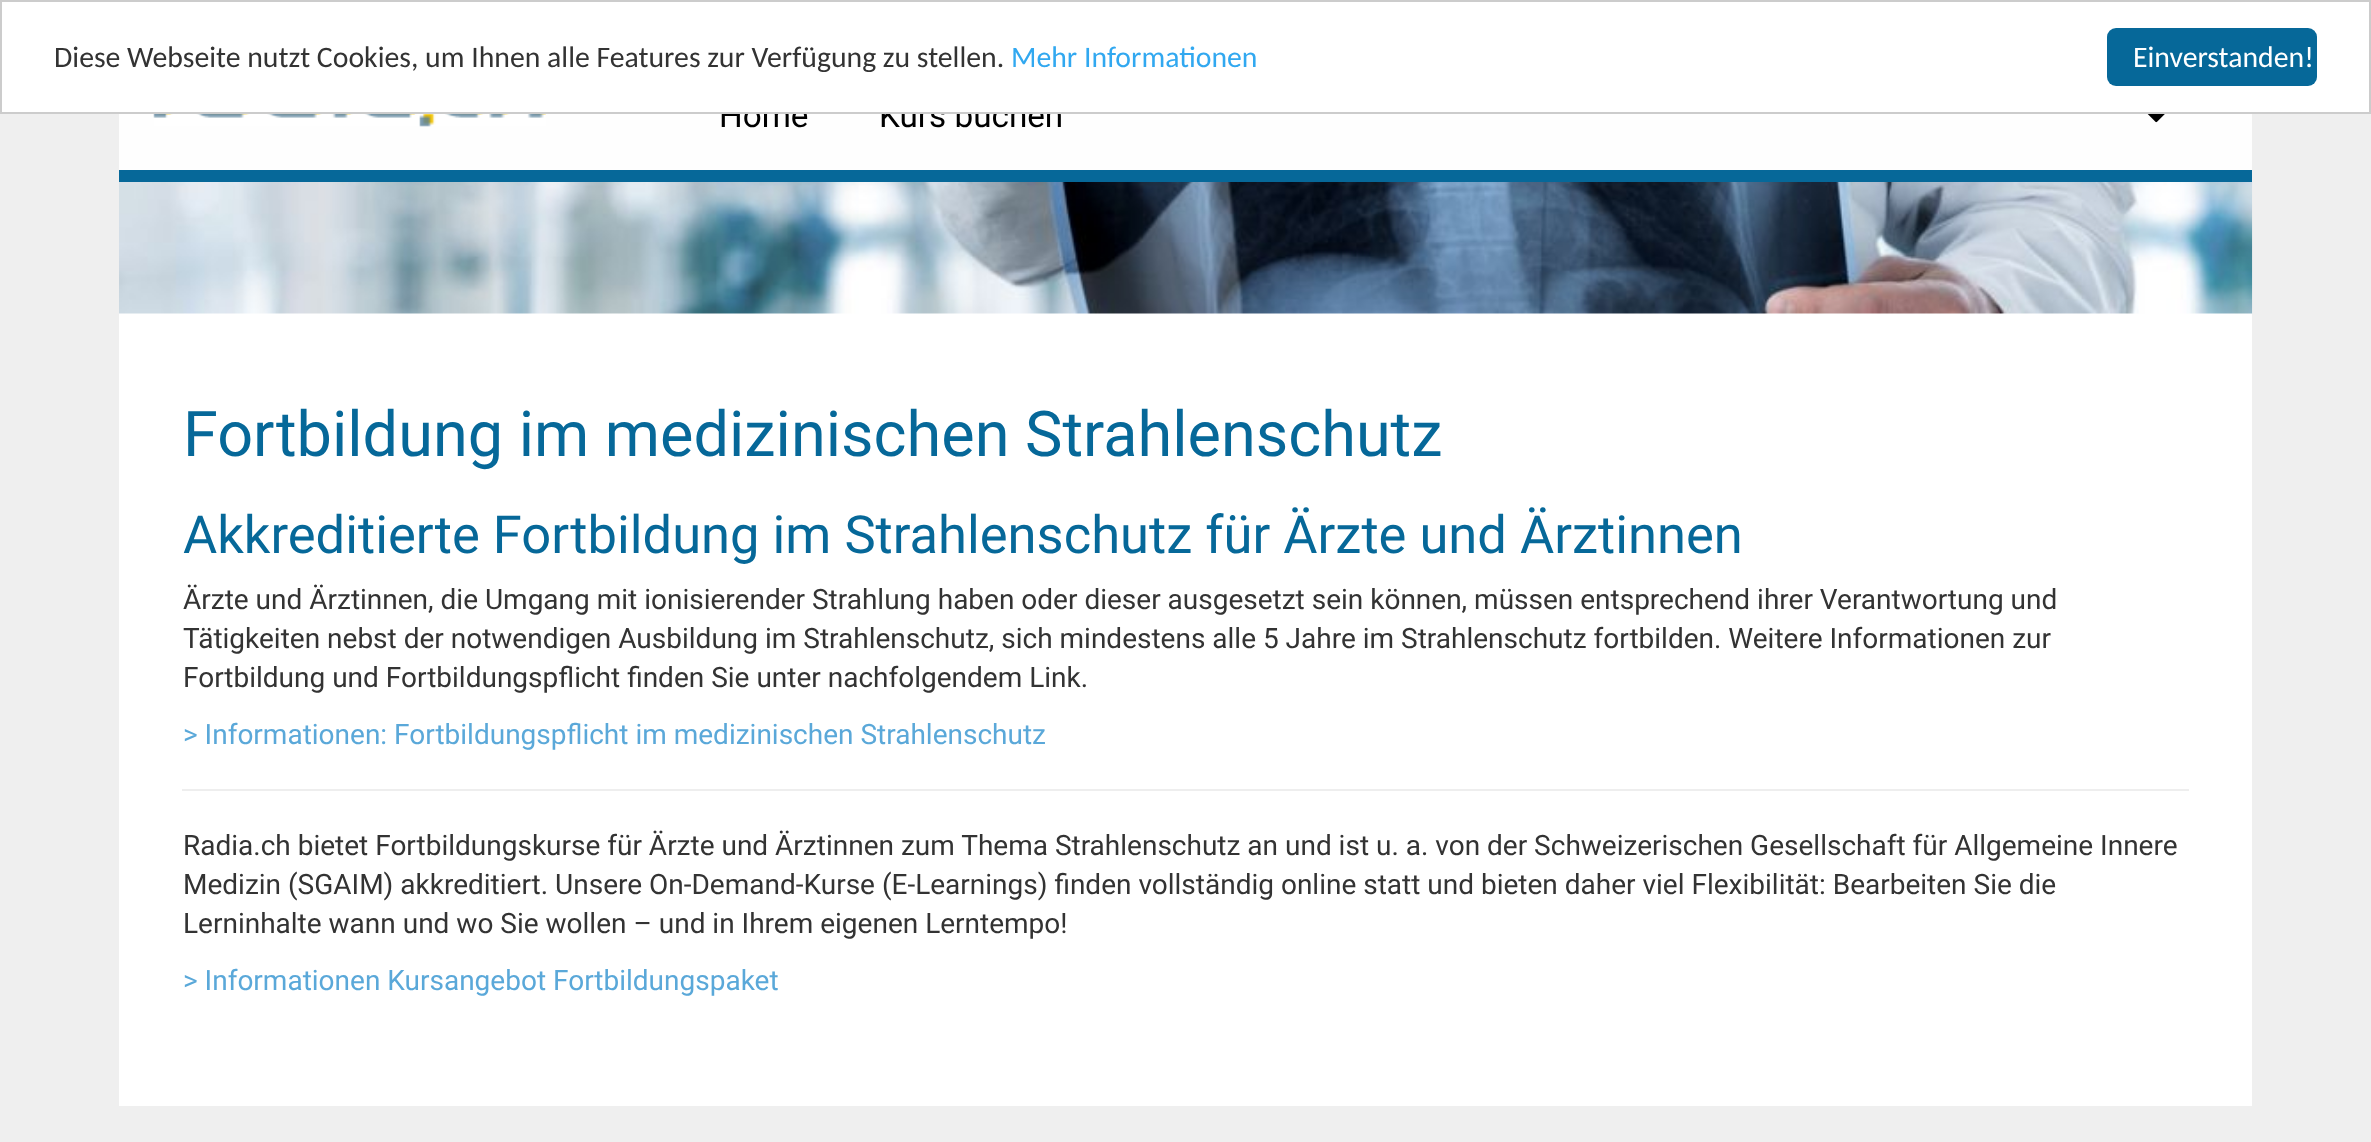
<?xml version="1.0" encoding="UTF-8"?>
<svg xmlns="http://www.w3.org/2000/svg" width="2371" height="1142">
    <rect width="100%" height="100%" fill="#EFEFEF"/>
    <rect x="119" y="114" width="2133" height="56" fill="#FEFEFE"/>
    <text x="719" y="127" font-family="Roboto" font-size="33.25" fill="#000000">Home</text>
    <text x="879" y="127" font-family="Roboto" font-size="33.25" fill="#000000">Kurs buchen</text>
    <rect x="1" y="1" width="2369" height="112" fill="#FFFFFF" stroke="#CCCCCC" stroke-width="2"/>
    <text x="54" y="67" font-family="Carlito" font-size="29.75" fill="#333333">Diese Webseite nutzt Cookies, um Ihnen alle Features zur Verfügung zu stellen.</text>
    <text x="1011" y="67" font-family="Carlito" font-size="29.75" fill="#31A8F0">Mehr Informationen</text>
    <rect x="2107" y="28" width="210" height="58" rx="9" fill="#066899"/>
    <text x="2133" y="67" font-family="Carlito" font-size="29.75" fill="#FFFFFF">Einverstanden!</text>
    <rect x="119" y="170" width="2133" height="12" fill="#066899"/>
    <image x="153" y="114" width="393" height="13" href="img_01.png"/>
    <image x="2147" y="114" width="18" height="9" href="img_02.png"/>
    <rect x="119" y="313" width="2133" height="793" fill="#FFFFFF"/>
    <image x="119" y="182" width="2134" height="132" href="img_03.png"/>
    <text x="183" y="456" font-family="Roboto" font-size="63" fill="#066899">Fortbildung im medizinischen Strahlenschutz</text>
    <text x="183" y="553" font-family="Roboto" font-size="52.5" fill="#066899">Akkreditierte Fortbildung im Strahlenschutz für Ärzte und Ärztinnen</text>
    <text font-family="Roboto" font-size="28" fill="#333333">
        <tspan x="183" y="609">Ärzte und Ärztinnen, die Umgang mit ionisierender Strahlung haben oder dieser ausgesetzt sein können, müssen entsprechend ihrer Verantwortung und</tspan>
        <tspan x="183" y="648">Tätigkeiten nebst der notwendigen Ausbildung im Strahlenschutz, sich mindestens alle 5 Jahre im Strahlenschutz fortbilden. Weitere Informationen zur</tspan>
        <tspan x="183" y="687">Fortbildung und Fortbildungspflicht finden Sie unter nachfolgendem Link.</tspan>
    </text>
    <text x="183" y="744" font-family="Roboto" font-size="28" fill="#5AA8D9">&gt; Informationen: Fortbildungspflicht im medizinischen Strahlenschutz</text>
    <rect x="182" y="789" width="2007" height="2" fill="#EEEEEE"/>
    <text font-family="Roboto" font-size="28" fill="#333333">
        <tspan x="183" y="855">Radia.ch bietet Fortbildungskurse für Ärzte und Ärztinnen zum Thema Strahlenschutz an und ist u. a. von der Schweizerischen Gesellschaft für Allgemeine Innere</tspan>
        <tspan x="183" y="894">Medizin (SGAIM) akkreditiert. Unsere On-Demand-Kurse (E-Learnings) finden vollständig online statt und bieten daher viel Flexibilität: Bearbeiten Sie die</tspan>
        <tspan x="183" y="933">Lerninhalte wann und wo Sie wollen – und in Ihrem eigenen Lerntempo!</tspan>
    </text>
    <text x="183" y="990" font-family="Roboto" font-size="28" fill="#5AA8D9">&gt; Informationen Kursangebot Fortbildungspaket</text>
</svg>
